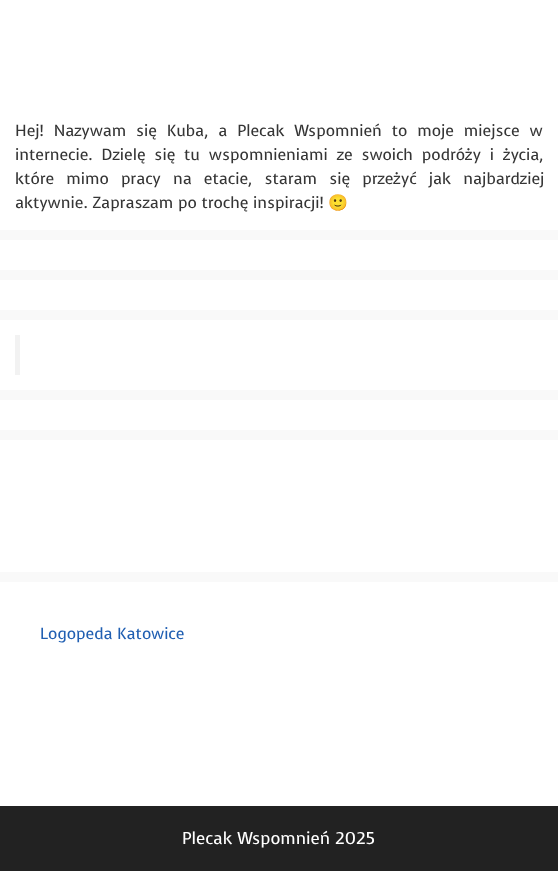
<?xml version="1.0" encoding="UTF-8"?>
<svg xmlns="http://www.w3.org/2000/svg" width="558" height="871">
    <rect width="100%" height="100%" fill="#F9F9F9"/>
    <rect x="0" y="0" width="558" height="230" fill="#FFFFFF"/>
    <text font-family="Voces" font-size="16" fill="#353535">
        <tspan x="15" y="136" word-spacing="5.25">Hej! Nazywam się Kuba, a Plecak Wspomnień to moje miejsce w</tspan>
        <tspan x="15" y="160" word-spacing="4.25">internecie. Dzielę się tu wspomnieniami ze swoich podróży i życia,</tspan>
        <tspan x="15" y="184" word-spacing="7.5">które mimo pracy na etacie, staram się przeżyć jak najbardziej</tspan>
        <tspan x="15" y="208">aktywnie. Zapraszam po trochę inspiracji!</tspan>
    </text>
    <text x="328" y="208" font-family="Noto Color Emoji" font-size="16" fill="#353535">🙂</text>
    <rect x="0" y="240" width="558" height="30" fill="#FFFFFF"/>
    <rect x="0" y="280" width="558" height="30" fill="#FFFFFF"/>
    <rect x="0" y="320" width="558" height="70" fill="#FFFFFF"/>
    <rect x="15" y="335" width="5" height="40" fill="#F2F2F2"/>
    <rect x="0" y="400" width="558" height="30" fill="#FFFFFF"/>
    <rect x="0" y="440" width="558" height="132" fill="#FFFFFF"/>
    <rect x="0" y="582" width="558" height="224" fill="#FFFFFF"/>
    <text x="40" y="639" font-family="Voces" font-size="16" fill="#205FB2">Logopeda Katowice</text>
    <rect x="0" y="806" width="558" height="65" fill="#222222"/>
    <text x="182" y="844" font-family="Voces" font-size="17" fill="#FFFFFF">Plecak Wspomnień 2025</text>
</svg>
